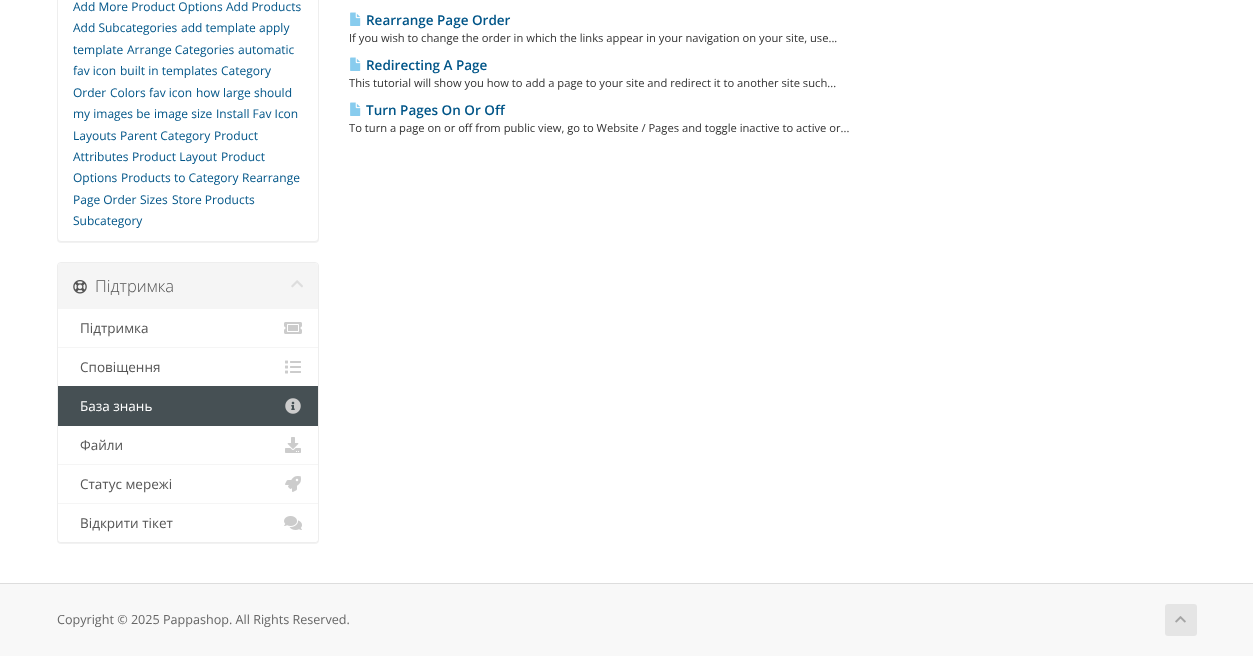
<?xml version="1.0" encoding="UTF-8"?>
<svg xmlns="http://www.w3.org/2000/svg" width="1253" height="656">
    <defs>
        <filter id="blur1" x="-50%" y="-200%" width="200%" height="500%"><feGaussianBlur stdDeviation="0.5"/></filter>
    </defs>
    <rect width="100%" height="100%" fill="#F8F8F8"/>
    <rect x="0" y="0" width="1253" height="583" fill="#FFFFFF"/>
    <rect x="57" y="-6" width="262" height="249" rx="4" fill="#000000" fill-opacity="0.05" filter="url(#blur1)"/>
    <rect x="57.5" y="-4.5" width="261" height="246" rx="3.5" fill="#FFFFFF" stroke="#EEEEEE"/>
    <text x="73" y="11" font-family="Open Sans" font-size="12" fill="#005588">Add More Product Options</text>
    <text x="226" y="11" font-family="Open Sans" font-size="12" fill="#005588">Add Products</text>
    <text x="73" y="32" font-family="Open Sans" font-size="12" fill="#005588">Add Subcategories</text>
    <text x="181" y="32" font-family="Open Sans" font-size="12" fill="#005588">add template</text>
    <text x="259" y="32" font-family="Open Sans" font-size="12" fill="#005588">apply</text>
    <text x="73" y="54" font-family="Open Sans" font-size="12" fill="#005588">template</text>
    <text x="127" y="54" font-family="Open Sans" font-size="12" fill="#005588">Arrange Categories</text>
    <text x="238" y="54" font-family="Open Sans" font-size="12" fill="#005588">automatic</text>
    <text x="73" y="75" font-family="Open Sans" font-size="12" fill="#005588">fav icon</text>
    <text x="120" y="75" font-family="Open Sans" font-size="12" fill="#005588">built in templates</text>
    <text x="221" y="75" font-family="Open Sans" font-size="12" fill="#005588">Category</text>
    <text x="73" y="97" font-family="Open Sans" font-size="12" fill="#005588">Order</text>
    <text x="110" y="97" font-family="Open Sans" font-size="12" fill="#005588">Colors</text>
    <text x="149" y="97" font-family="Open Sans" font-size="12" fill="#005588">fav icon</text>
    <text x="196" y="97" font-family="Open Sans" font-size="12" fill="#005588">how large should</text>
    <text x="73" y="118" font-family="Open Sans" font-size="12" fill="#005588">my images be</text>
    <text x="154" y="118" font-family="Open Sans" font-size="12" fill="#005588">image size</text>
    <text x="216" y="118" font-family="Open Sans" font-size="12" fill="#005588">Install Fav Icon</text>
    <text x="73" y="140" font-family="Open Sans" font-size="12" fill="#005588">Layouts</text>
    <text x="120" y="140" font-family="Open Sans" font-size="12" fill="#005588">Parent Category</text>
    <text x="214" y="140" font-family="Open Sans" font-size="12" fill="#005588">Product</text>
    <text x="73" y="161" font-family="Open Sans" font-size="12" fill="#005588">Attributes</text>
    <text x="132" y="161" font-family="Open Sans" font-size="12" fill="#005588">Product Layout</text>
    <text x="221" y="161" font-family="Open Sans" font-size="12" fill="#005588">Product</text>
    <text x="73" y="182" font-family="Open Sans" font-size="12" fill="#005588">Options</text>
    <text x="121" y="182" font-family="Open Sans" font-size="12" fill="#005588">Products to Category</text>
    <text x="242" y="182" font-family="Open Sans" font-size="12" fill="#005588">Rearrange</text>
    <text x="73" y="204" font-family="Open Sans" font-size="12" fill="#005588">Page Order</text>
    <text x="140" y="204" font-family="Open Sans" font-size="12" fill="#005588">Sizes</text>
    <text x="172" y="204" font-family="Open Sans" font-size="12" fill="#005588">Store Products</text>
    <text x="73" y="225" font-family="Open Sans" font-size="12" fill="#005588">Subcategory</text>
    <rect x="57" y="263" width="262" height="281" rx="4" fill="#000000" fill-opacity="0.05" filter="url(#blur1)"/>
    <rect x="57.5" y="262.5" width="261" height="280" rx="3.5" fill="#FFFFFF" stroke="#EEEEEE"/>
    <path d="M 61 263 H 315 C 316.5 263 318 264.5 318 266 V 309 H 58 V 266 C 58 264.5 59.5 263 61 263 Z" fill="#F5F5F5"/>
    <image x="73" y="280" width="14" height="14" href="img_01.png"/>
    <text x="95" y="292" font-family="Open Sans" font-size="16.5" font-weight="300" fill="#555555">Підтримка</text>
    <image x="291" y="280" width="12" height="8" href="img_02.png"/>
    <rect x="58" y="347" width="260" height="1" fill="#F5F5F5"/>
    <text x="80" y="333" font-family="Open Sans" font-size="13.5" fill="#555555">Підтримка</text>
    <image x="284" y="322" width="18" height="12" href="img_03.png"/>
    <text x="80" y="372" font-family="Open Sans" font-size="13.5" fill="#555555">Сповіщення</text>
    <image x="285" y="360" width="16" height="14" href="img_04.png"/>
    <rect x="58" y="386" width="260" height="40" fill="#465054"/>
    <text x="80" y="411" font-family="Open Sans" font-size="13.5" fill="#FFFFFF">База знань</text>
    <image x="285" y="398" width="16" height="16" href="img_05.png"/>
    <rect x="58" y="464" width="260" height="1" fill="#F5F5F5"/>
    <text x="80" y="450" font-family="Open Sans" font-size="13.5" fill="#555555">Файли</text>
    <image x="285" y="437" width="16" height="16" href="img_06.png"/>
    <text x="80" y="489" font-family="Open Sans" font-size="13.5" fill="#555555">Статус мережі</text>
    <image x="285" y="476" width="16" height="16" href="img_07.png"/>
    <path d="M 58 503 H 318 V 539 C 318 540.5 316.5 542 315 542 H 61 C 59.5 542 58 540.5 58 539 Z" fill="#FFFFFF"/>
    <rect x="58" y="503" width="260" height="1" fill="#F5F5F5"/>
    <text x="80" y="528" font-family="Open Sans" font-size="13.5" fill="#555555">Відкрити тікет</text>
    <image x="284" y="516" width="18" height="14" href="img_08.png"/>
    <image x="350" y="12" width="11" height="14" href="img_09.png"/>
    <text x="366" y="25" font-family="Open Sans" font-size="13.5" font-weight="600" fill="#005588">Rearrange Page Order</text>
    <text x="349" y="42" font-family="Open Sans" font-size="11.2" fill="#333333">If you wish to change the order in which the links appear in your navigation on your site, use...</text>
    <image x="350" y="57" width="11" height="14" href="img_09.png"/>
    <text x="366" y="70" font-family="Open Sans" font-size="13.5" font-weight="600" fill="#005588">Redirecting A Page</text>
    <text x="349" y="87" font-family="Open Sans" font-size="11.2" fill="#333333">This tutorial will show you how to add a page to your site and redirect it to another site such...</text>
    <image x="350" y="102" width="11" height="14" href="img_09.png"/>
    <text x="366" y="115" font-family="Open Sans" font-size="13.5" font-weight="600" fill="#005588">Turn Pages On Or Off</text>
    <text x="349" y="132" font-family="Open Sans" font-size="11.2" fill="#333333">To turn a page on or off from public view, go to Website / Pages and toggle inactive to active or...</text>
    <rect x="0" y="583" width="1253" height="1" fill="#DDDDDD"/>
    <text x="57" y="624" font-family="Open Sans" font-size="12.6" fill="#666666">Copyright © 2025 Pappashop. All Rights Reserved.</text>
    <rect x="1165" y="604" width="32" height="32" rx="3" fill="#E5E5E5"/>
    <image x="1175" y="616" width="11" height="7" href="img_10.png"/>
</svg>
